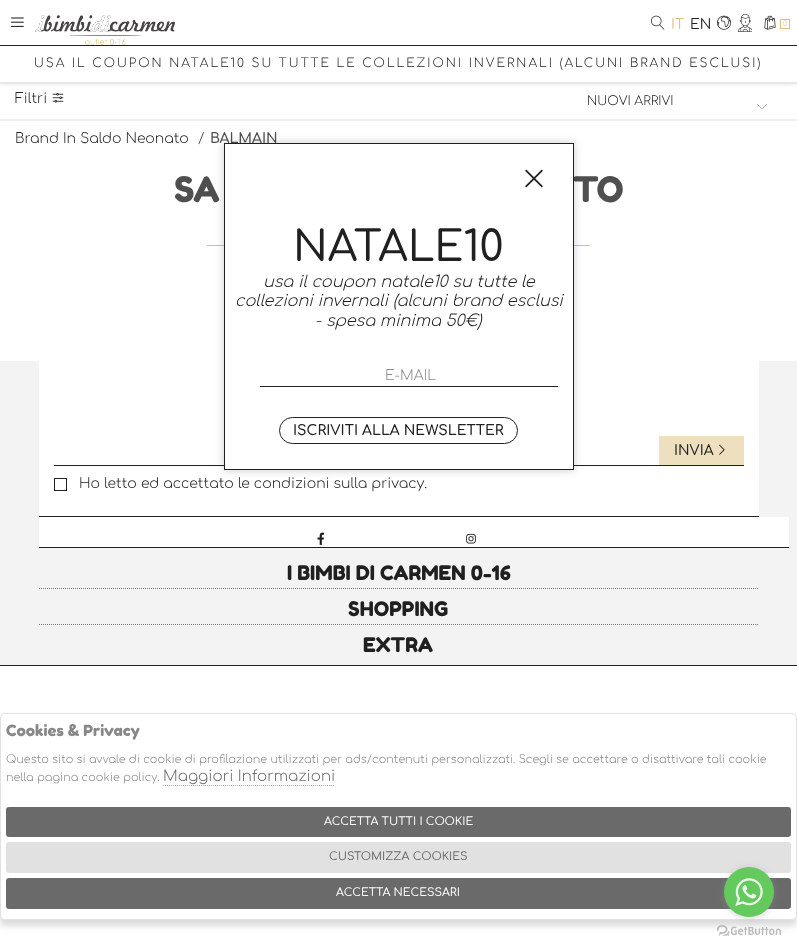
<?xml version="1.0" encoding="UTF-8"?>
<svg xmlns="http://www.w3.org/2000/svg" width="797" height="950">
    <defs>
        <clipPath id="clip1"><rect x="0" y="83" width="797" height="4"/></clipPath>
        <filter id="blur1" x="-50%" y="-200%" width="200%" height="500%"><feGaussianBlur stdDeviation="5"/></filter>
        <filter id="blur2" x="-50%" y="-200%" width="200%" height="500%"><feGaussianBlur stdDeviation="3"/></filter>
        <filter id="blur3" x="-50%" y="-200%" width="200%" height="500%"><feGaussianBlur stdDeviation="3.5"/></filter>
    </defs>
    <rect width="100%" height="100%" fill="#FFFFFF"/>
    <rect x="0" y="83" width="797" height="1" fill="#EFEFEF"/>
    <image x="52" y="93" width="12" height="10" href="img_07.png"/>
    <g clip-path="url(#clip1)">
        <rect x="0" y="46" width="797" height="37" fill="#202020" fill-opacity="0.1" filter="url(#blur1)"/>
    </g>
    <rect x="0" y="40" width="797" height="5" fill="#FFFFFF"/>
    <rect x="0" y="45" width="797" height="1" fill="#202020"/>
    <image x="11" y="17" width="13" height="10" href="img_01.png"/>
    <image x="35" y="15" width="140" height="30" href="img_02.png"/>
    <image x="651" y="15" width="14" height="15" href="img_03.png"/>
    <text x="671" y="29" font-family="Comfortaa" font-size="14" fill="#DCBE7F">IT</text>
    <text x="690" y="29" font-family="Comfortaa" font-size="14" fill="#202020">EN</text>
    <image x="717" y="15" width="14" height="15" href="img_04.png"/>
    <image x="738" y="14" width="14" height="18" href="img_05.png"/>
    <image x="764" y="15" width="12" height="15" href="img_06.png"/>
    <rect x="780.5" y="19.5" width="9" height="9" fill="none" stroke="#DCBE7F"/>
    <text x="783" y="26" font-family="Comfortaa" font-size="7" font-weight="300" fill="#DCBE7F">0</text>
    <rect x="0" y="82" width="797" height="1" fill="#E8E8E8"/>
    <text x="34" y="67" font-family="Comfortaa" font-size="12.25" font-weight="300" letter-spacing="2" fill="#202020">USA IL COUPON NATALE10 SU TUTTE LE COLLEZIONI INVERNALI (ALCUNI BRAND ESCLUSI)</text>
    <rect x="0" y="119" width="797" height="2" fill="#EFEFEF"/>
    <text x="15" y="103" font-family="Comfortaa" font-size="14" font-weight="300" fill="#202020">Filtri</text>
    <image x="757" y="104" width="10" height="5" href="img_08.png"/>
    <text x="587" y="105" font-family="Comfortaa" font-size="12.5" font-weight="300" fill="#202020">NUOVI ARRIVI</text>
    <text x="15" y="143" font-family="Comfortaa" font-size="14" font-weight="300" fill="#202020">Brand In Saldo Neonato</text>
    <text x="198" y="143" font-family="Comfortaa" font-size="14" font-weight="300" fill="#504F4F">/</text>
    <text x="210" y="143" font-family="Comfortaa" font-size="14" font-weight="600" fill="#504F4F">BALMAIN</text>
    <text x="174" y="202" font-family="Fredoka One" font-size="35" fill="#504F4F">SA</text>
    <text x="573" y="202" font-family="Fredoka One" font-size="35" fill="#504F4F">TO</text>
    <rect x="207" y="245" width="383" height="1" fill="#DCBE7F"/>
    <rect x="0" y="361" width="797" height="304" fill="#F3F3F3"/>
    <rect x="39" y="361" width="720" height="155" fill="#FFFFFF"/>
    <rect x="54" y="465" width="690" height="1" fill="#202020"/>
    <rect x="224" y="143" width="350" height="327" fill="#202020" fill-opacity="0.2" filter="url(#blur1)"/>
    <rect x="224.5" y="143.5" width="349" height="326" fill="#FFFFFF" stroke="#202020"/>
    <image x="525" y="169" width="18" height="19" href="img_09.png"/>
    <text x="293" y="261" font-family="Comfortaa" font-size="42" font-weight="500" fill="#202020">NATALE10</text>
    <text x="263" y="287" font-family="Comfortaa" font-size="16" font-weight="300" font-style="italic" fill="#202020">usa il coupon natale10 su tutte le</text>
    <text x="235" y="306" font-family="Comfortaa" font-size="16" font-weight="300" font-style="italic" fill="#202020">collezioni invernali (alcuni brand esclusi</text>
    <text x="315" y="326" font-family="Comfortaa" font-size="16" font-weight="300" font-style="italic" fill="#202020">- spesa minima 50€)</text>
    <rect x="260" y="386" width="298" height="1" fill="#202020"/>
    <text x="385" y="380" font-family="Comfortaa" font-size="14" font-weight="300" fill="#888888">E-MAIL</text>
    <rect x="279.5" y="417.5" width="238" height="26" rx="13" fill="none" stroke="#202020"/>
    <text x="293" y="435" font-family="Comfortaa" font-size="14" font-weight="600" fill="#202020">ISCRIVITI ALLA NEWSLETTER</text>
    <rect x="0" y="665" width="797" height="1" fill="#202020"/>
    <rect x="39" y="516" width="720" height="1" fill="#202020"/>
    <rect x="659" y="436" width="85" height="29" fill="#EEDFBF"/>
    <text x="674" y="455" font-family="Comfortaa" font-size="14" font-weight="500" fill="#202020">INVIA</text>
    <image x="719" y="444" width="6" height="11" href="img_10.png"/>
    <rect x="54.5" y="478.5" width="12" height="12" fill="none" stroke="#202020"/>
    <text x="79" y="488" font-family="Comfortaa" font-size="14" font-weight="300" fill="#202020">Ho letto ed accettato le condizioni sulla privacy.</text>
    <rect x="39" y="517" width="750" height="30" fill="#FFFFFF"/>
    <rect x="39" y="547" width="750" height="1" fill="#202020"/>
    <image x="317" y="532" width="8" height="13" href="img_11.png"/>
    <image x="466" y="533" width="10" height="11" href="img_12.png"/>
    <path d="M 39 588.5 H 759" fill="none" stroke="#797979" stroke-dasharray="1 1"/>
    <text x="287" y="580" font-family="Fredoka One" font-size="20" fill="#202020">I BIMBI DI CARMEN 0-16</text>
    <path d="M 39 624.5 H 759" fill="none" stroke="#797979" stroke-dasharray="1 1"/>
    <text x="348" y="616" font-family="Fredoka One" font-size="20" fill="#202020">SHOPPING</text>
    <text x="363" y="652" font-family="Fredoka One" font-size="20" fill="#202020">EXTRA</text>
    <rect x="0" y="719" width="797" height="207" rx="5" fill="#6A6A6A" fill-opacity="0.25" filter="url(#blur2)"/>
    <rect x="0.5" y="713.5" width="796" height="206" rx="4.5" fill="#FFFFFF" stroke="#E1E1E1"/>
    <text x="6" y="736" font-family="Fredoka One" font-size="15.5" fill="#888888">Cookies &amp; Privacy</text>
    <text font-family="Comfortaa" font-size="11.2" font-weight="300" fill="#888888">
        <tspan x="6" y="763">Questo sito si avvale di cookie di profilazione utilizzati per ads/contenuti personalizzati. Scegli se accettare o disattivare tali cookie</tspan>
        <tspan x="6" y="781">nella pagina cookie policy.</tspan>
    </text>
    <text x="163" y="781" font-family="Comfortaa" font-size="15" font-weight="300" fill="#6A6A6A">Maggiori Informazioni</text>
    <path d="M 163 785.5 H 335" fill="none" stroke="#A7A7A7" stroke-dasharray="1 1"/>
    <rect x="6" y="807" width="785" height="30" rx="3" fill="#6A6A6A"/>
    <text x="324" y="825" font-family="Comfortaa" font-size="11.2" font-weight="500" fill="#FFFFFF">ACCETTA TUTTI I COOKIE</text>
    <rect x="6" y="842" width="785" height="31" rx="3" fill="#E1E1E1"/>
    <text x="329" y="860" font-family="Comfortaa" font-size="11.2" font-weight="500" fill="#6A6A6A">CUSTOMIZZA COOKIES</text>
    <rect x="6" y="878" width="785" height="31" rx="3" fill="#6A6A6A"/>
    <text x="336" y="896" font-family="Comfortaa" font-size="11.2" font-weight="500" fill="#FFFFFF">ACCETTA NECESSARI</text>
    <image x="717" y="925" width="64" height="11" href="img_14.png"/>
    <rect x="724" y="868" width="50" height="50" rx="25" fill="#979797" fill-opacity="0.4" filter="url(#blur3)"/>
    <circle cx="749" cy="892" r="25" fill="#64CA5E"/>
    <image x="735" y="878" width="28" height="28" href="img_13.png"/>
</svg>
